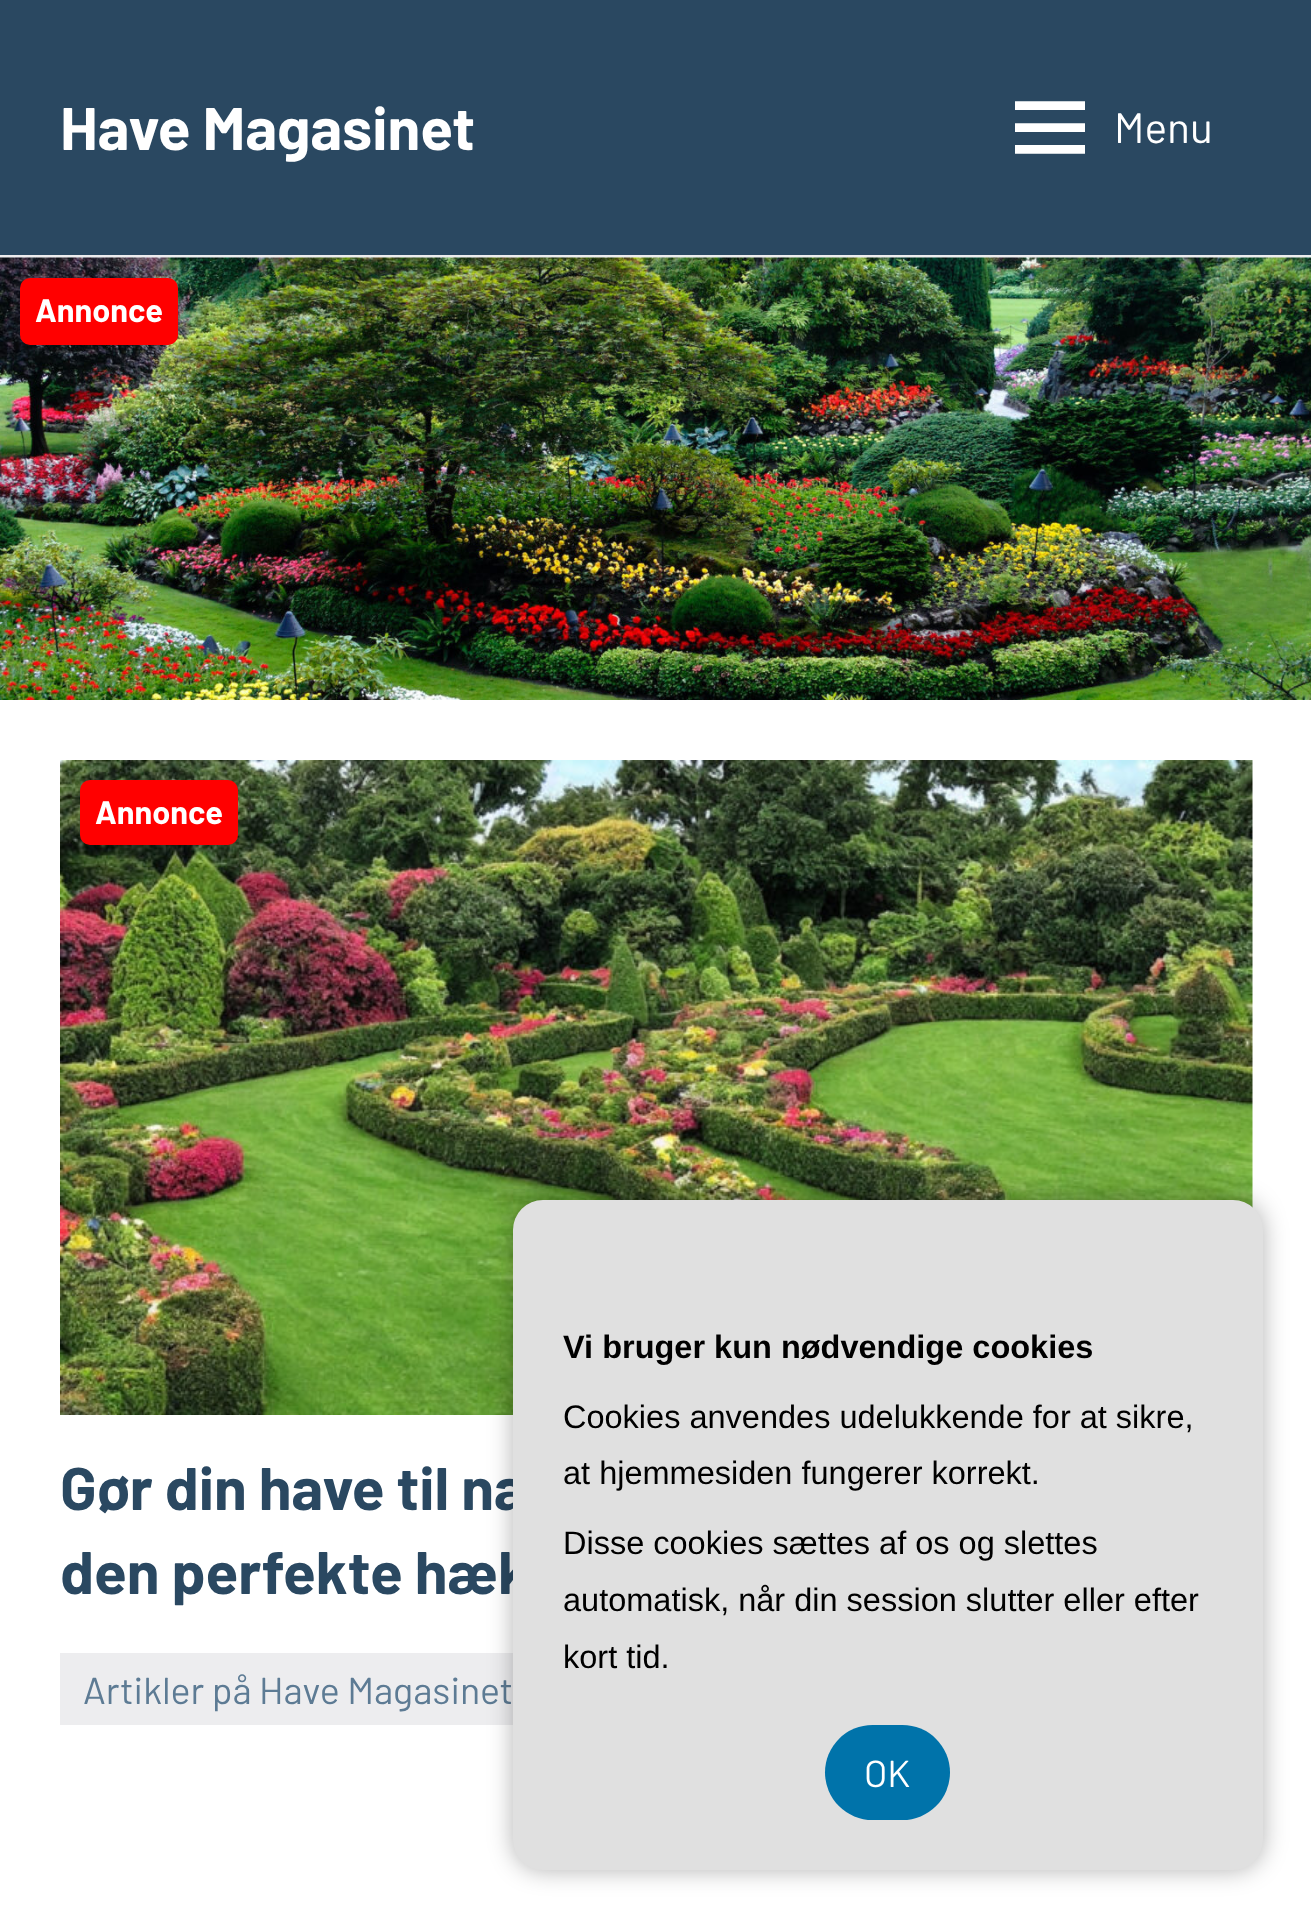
<?xml version="1.0" encoding="UTF-8"?>
<svg xmlns="http://www.w3.org/2000/svg" width="1311" height="1918">
    <defs>
        <filter id="blur1" x="-50%" y="-200%" width="200%" height="500%"><feGaussianBlur stdDeviation="12.5"/></filter>
    </defs>
    <rect width="100%" height="100%" fill="#EDEDEF"/>
    <rect x="0" y="0" width="1311" height="255" fill="#2A4861"/>
    <text x="60" y="150" font-family="Barlow" font-size="60" font-weight="700" fill="#FFFFFF">Have Magasinet</text>
    <image x="1015" y="101" width="70" height="53" href="img_01.png"/>
    <text x="1114" y="143" font-family="Barlow" font-size="42.5" fill="#FFFFFF">Menu</text>
    <image x="0" y="257" width="1311" height="443" href="img_02.png"/>
    <rect x="20" y="278" width="158" height="67" rx="10" fill="#FF0000"/>
    <text x="35" y="322" font-family="Barlow" font-size="32.5" font-weight="700" fill="#FFFFFF">Annonce</text>
    <rect x="0" y="700" width="1311" height="1218" fill="#FFFFFF"/>
    <image x="60" y="760" width="1193" height="655" href="img_03.png"/>
    <rect x="80" y="780" width="158" height="65" rx="10" fill="#FF0000"/>
    <text x="95" y="824" font-family="Barlow" font-size="32.5" font-weight="700" fill="#FFFFFF">Annonce</text>
    <text font-family="Barlow" font-size="60" font-weight="700" fill="#2A4861">
        <tspan x="60" y="1510">Gør din have til na</tspan>
        <tspan x="60" y="1594">den perfekte hæk</tspan>
    </text>
    <rect x="60" y="1653" width="453" height="72" fill="#EDEDEF"/>
    <text x="83" y="1704" font-family="Barlow" font-size="37.5" fill="#5D7B94">Artikler på Have Magasinet</text>
    <rect x="513" y="1200" width="750" height="670" rx="30" fill="#000000" fill-opacity="0.3" filter="url(#blur1)"/>
    <rect x="513" y="1200" width="750" height="670" rx="30" fill="#E0E0E0"/>
    <text x="563" y="1358" font-family="Liberation Sans" font-size="32.5" font-weight="700" fill="#000000">Vi bruger kun nødvendige cookies</text>
    <text font-family="Liberation Sans" font-size="32.5" fill="#000000">
        <tspan x="563" y="1428">Cookies anvendes udelukkende for at sikre,</tspan>
        <tspan x="563" y="1484">at hjemmesiden fungerer korrekt.</tspan>
    </text>
    <text font-family="Liberation Sans" font-size="32.5" fill="#000000">
        <tspan x="563" y="1554">Disse cookies sættes af os og slettes</tspan>
        <tspan x="563" y="1611">automatisk, når din session slutter eller efter</tspan>
        <tspan x="563" y="1668">kort tid.</tspan>
    </text>
    <rect x="825" y="1725" width="125" height="95" rx="47.5" fill="#0073AA"/>
    <text x="864" y="1787" font-family="Barlow" font-size="37.5" fill="#FFFFFF">OK</text>
</svg>
